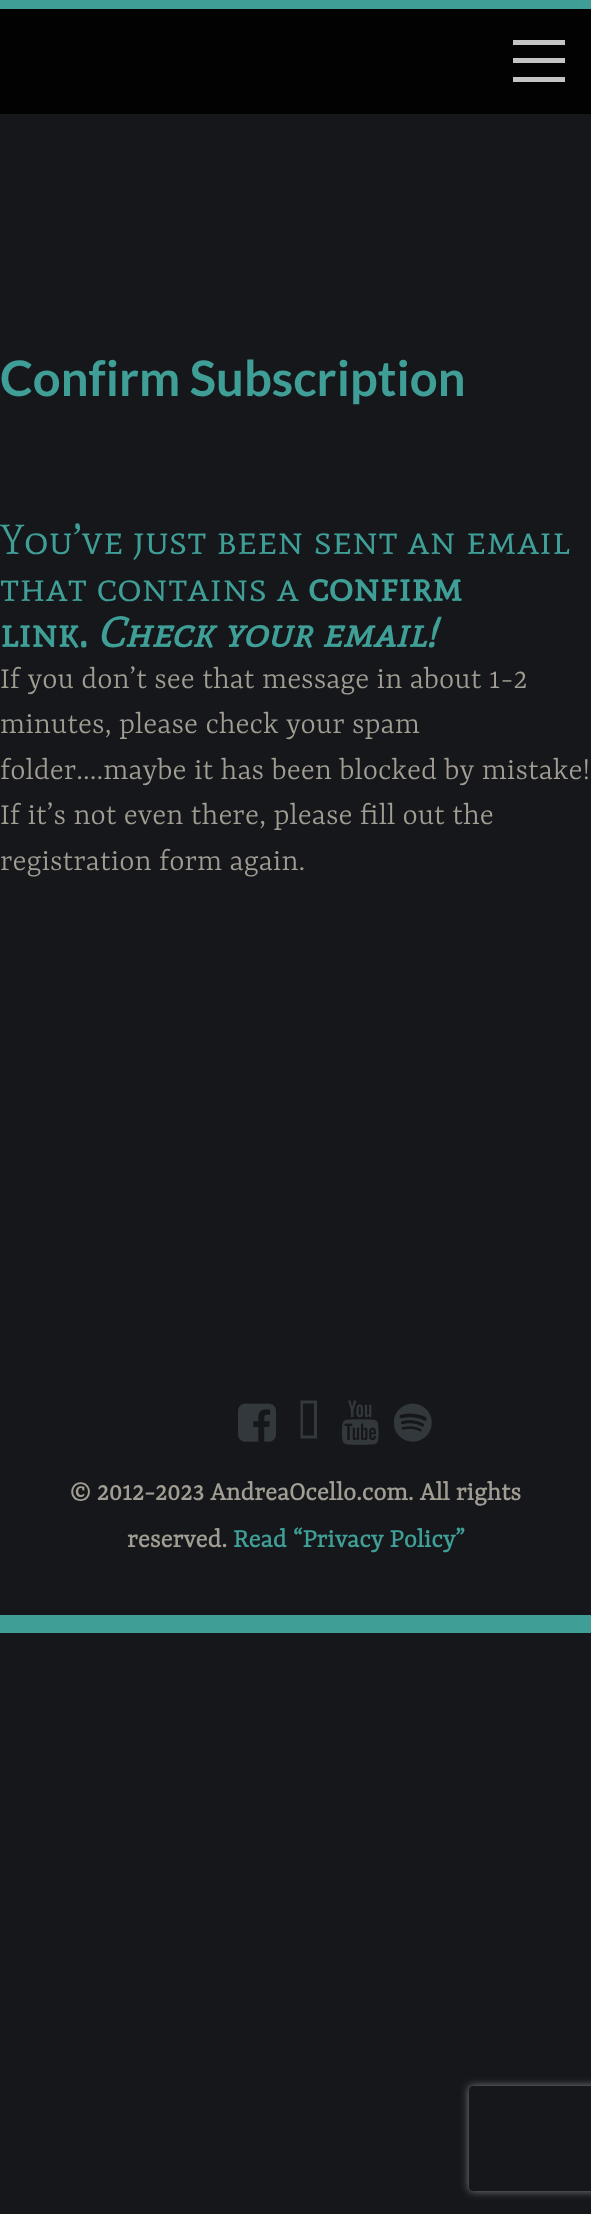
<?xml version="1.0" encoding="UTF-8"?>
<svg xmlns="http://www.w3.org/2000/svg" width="591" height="2214">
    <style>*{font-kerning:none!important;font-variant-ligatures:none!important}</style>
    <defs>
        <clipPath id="clip1"><path d="M 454 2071 H 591 V 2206 H 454 Z M 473 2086 H 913 C 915 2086 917 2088 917 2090 V 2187 C 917 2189 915 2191 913 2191 H 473 C 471 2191 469 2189 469 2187 V 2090 C 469 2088 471 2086 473 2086 Z" clip-rule="evenodd"/></clipPath>
        <filter id="blur1" x="-50%" y="-200%" width="200%" height="500%"><feGaussianBlur stdDeviation="4.5"/></filter>
    </defs>
    <rect width="100%" height="100%" fill="#15171B"/>
    <rect x="0" y="9" width="591" height="105" fill="#020203"/>
    <rect x="0" y="0" width="591" height="9" fill="#3F9F97"/>
    <rect x="513" y="40" width="52" height="5" fill="#C4C4C4"/>
    <rect x="513" y="58" width="52" height="5" fill="#C4C4C4"/>
    <rect x="513" y="77" width="52" height="5" fill="#C4C4C4"/>
    <text x="0" y="396" font-family="Lato" font-size="49" font-weight="700" fill="#3F9F97">Confirm Subscription</text>
    <text font-family="Mate SC" font-size="42" fill="#3F9F97">
        <tspan x="0" y="554">You’ve just been sent an email</tspan>
        <tspan x="0" y="601">that contains a</tspan>
    </text>
    <text x="308" y="601" font-family="Mate SC" font-size="42" font-weight="700" fill="#3F9F97">confirm</text>
    <text x="0" y="647" font-family="Mate SC" font-size="42" font-weight="700" fill="#3F9F97">link.</text>
    <text x="97" y="647" font-family="Mate SC" font-size="42" font-weight="700" font-style="italic" fill="#3F9F97">Check your email!</text>
    <text font-family="Rasa" font-size="32.7" font-weight="300" fill="#A09D93">
        <tspan x="0" y="688">If you don’t see that message in about 1-2</tspan>
        <tspan x="0" y="733">minutes, please check your spam</tspan>
        <tspan x="0" y="779">folder….maybe it has been blocked by mistake!</tspan>
        <tspan x="0" y="824">If it’s not even there, please fill out the</tspan>
        <tspan x="0" y="870">registration form again.</tspan>
    </text>
    <rect x="0" y="1615" width="591" height="18" fill="#3F9F97"/>
    <image x="238" y="1403" width="38" height="39" href="img_01.png"/>
    <path d="M 303 1435.5 H 314 V 1403.5 H 303 Z M 300.5 1438.5 V 1400.5 H 317 V 1438.5 Z" fill="#33383C"/>
    <image x="342" y="1400" width="37" height="45" href="img_02.png"/>
    <image x="394" y="1403" width="38" height="39" href="img_03.png"/>
    <text x="70" y="1500" font-family="Rasa" font-size="28" font-weight="700" fill="#A09D93">© 2012-2023 AndreaOcello.com. All rights</text>
    <text x="127" y="1547" font-family="Rasa" font-size="28" font-weight="700" fill="#A09D93">reserved.</text>
    <text x="233" y="1547" font-family="Rasa" font-size="28" font-weight="700" fill="#3F9F97">Read “Privacy Policy”</text>
    <g clip-path="url(#clip1)">
        <rect x="469" y="2086" width="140" height="105" rx="4" fill="#808080" filter="url(#blur1)"/>
    </g>
</svg>
